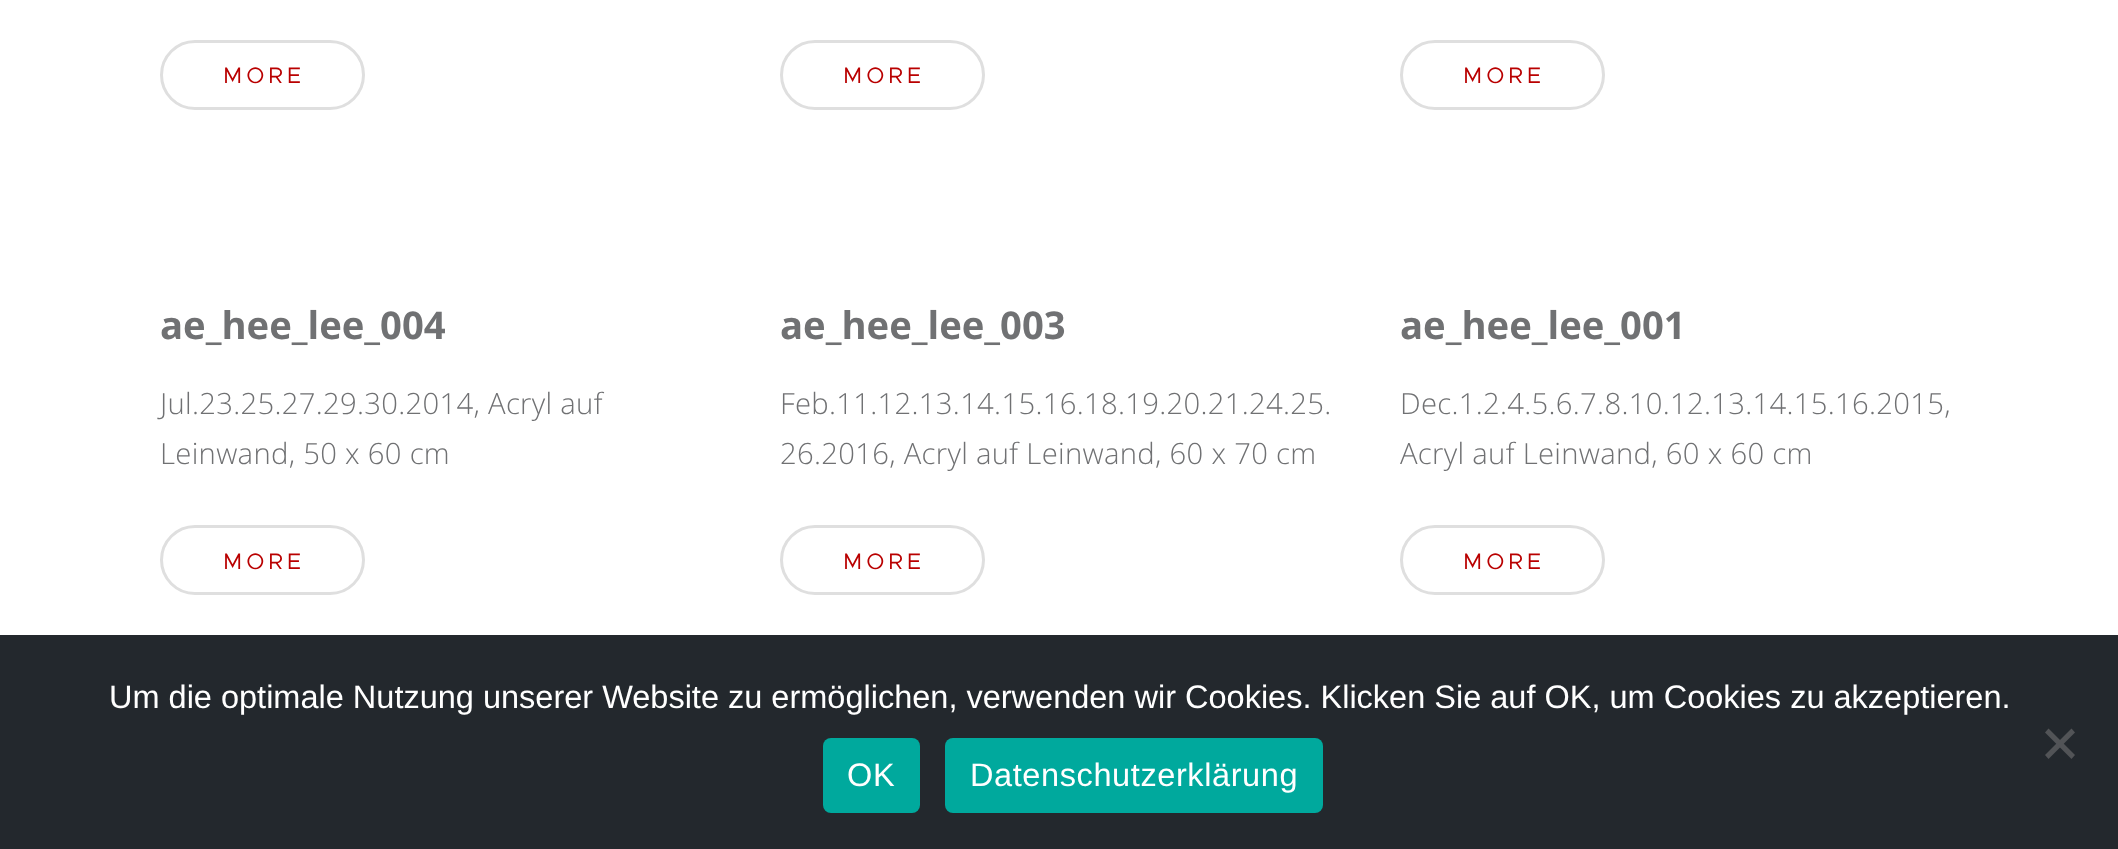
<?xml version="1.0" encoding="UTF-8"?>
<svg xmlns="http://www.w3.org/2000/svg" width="2118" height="849">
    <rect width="100%" height="100%" fill="#FFFFFF"/>
    <rect x="161.5" y="41.5" width="202" height="67" rx="33.5" fill="none" stroke="#DFDFDF" stroke-width="3"/>
    <text x="223" y="83" font-family="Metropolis" font-size="22.5" letter-spacing="4" fill="#B90000">MORE</text>
    <rect x="781.5" y="41.5" width="202" height="67" rx="33.5" fill="none" stroke="#DFDFDF" stroke-width="3"/>
    <text x="843" y="83" font-family="Metropolis" font-size="22.5" letter-spacing="4" fill="#B90000">MORE</text>
    <rect x="1401.5" y="41.5" width="202" height="67" rx="33.5" fill="none" stroke="#DFDFDF" stroke-width="3"/>
    <text x="1463" y="83" font-family="Metropolis" font-size="22.5" letter-spacing="4" fill="#B90000">MORE</text>
    <text x="160" y="339" font-family="Open Sans" font-size="38.25" font-weight="700" fill="#707173">ae_hee_lee_004</text>
    <text font-family="Open Sans" font-size="29.25" font-weight="300" letter-spacing="0.3" fill="#707173">
        <tspan x="160" y="414">Jul.23.25.27.29.30.2014, Acryl auf</tspan>
        <tspan x="160" y="464">Leinwand, 50 x 60 cm</tspan>
    </text>
    <rect x="161.5" y="526.5" width="202" height="67" rx="33.5" fill="none" stroke="#DFDFDF" stroke-width="3"/>
    <text x="223" y="569" font-family="Metropolis" font-size="22.5" letter-spacing="4" fill="#B90000">MORE</text>
    <text x="780" y="339" font-family="Open Sans" font-size="38.25" font-weight="700" fill="#707173">ae_hee_lee_003</text>
    <text font-family="Open Sans" font-size="29.25" font-weight="300" letter-spacing="0.3" fill="#707173">
        <tspan x="780" y="414">Feb.11.12.13.14.15.16.18.19.20.21.24.25.</tspan>
        <tspan x="780" y="464">26.2016, Acryl auf Leinwand, 60 x 70 cm</tspan>
    </text>
    <rect x="781.5" y="526.5" width="202" height="67" rx="33.5" fill="none" stroke="#DFDFDF" stroke-width="3"/>
    <text x="843" y="569" font-family="Metropolis" font-size="22.5" letter-spacing="4" fill="#B90000">MORE</text>
    <text x="1400" y="339" font-family="Open Sans" font-size="38.25" font-weight="700" fill="#707173">ae_hee_lee_001</text>
    <text font-family="Open Sans" font-size="29.25" font-weight="300" letter-spacing="0.3" fill="#707173">
        <tspan x="1400" y="414">Dec.1.2.4.5.6.7.8.10.12.13.14.15.16.2015,</tspan>
        <tspan x="1400" y="464">Acryl auf Leinwand, 60 x 60 cm</tspan>
    </text>
    <rect x="1401.5" y="526.5" width="202" height="67" rx="33.5" fill="none" stroke="#DFDFDF" stroke-width="3"/>
    <text x="1463" y="569" font-family="Metropolis" font-size="22.5" letter-spacing="4" fill="#B90000">MORE</text>
    <rect x="0" y="635" width="2118" height="214" fill="#23282D"/>
    <text x="109" y="708" font-family="Liberation Sans" font-size="32.5" fill="#FFFFFF">Um die optimale Nutzung unserer Website zu ermöglichen, verwenden wir Cookies. Klicken Sie auf OK, um Cookies zu akzeptieren.</text>
    <path d="M 2071.5 728.5 L 2075 732.5 L 2048.5 759 L 2045 755 Z" fill="#525457"/>
    <path d="M 2045 732.5 L 2048.5 728.5 L 2075 755 L 2071.5 759 Z" fill="#525457"/>
    <rect x="823" y="738" width="97" height="75" rx="8" fill="#00A99D"/>
    <text x="847" y="786" font-family="Liberation Sans" font-size="32.5" letter-spacing="0.6" fill="#FFFFFF">OK</text>
    <rect x="945" y="738" width="378" height="75" rx="8" fill="#00A99D"/>
    <text x="970" y="786" font-family="Liberation Sans" font-size="32.5" letter-spacing="0.6" fill="#FFFFFF">Datenschutzerklärung</text>
</svg>
